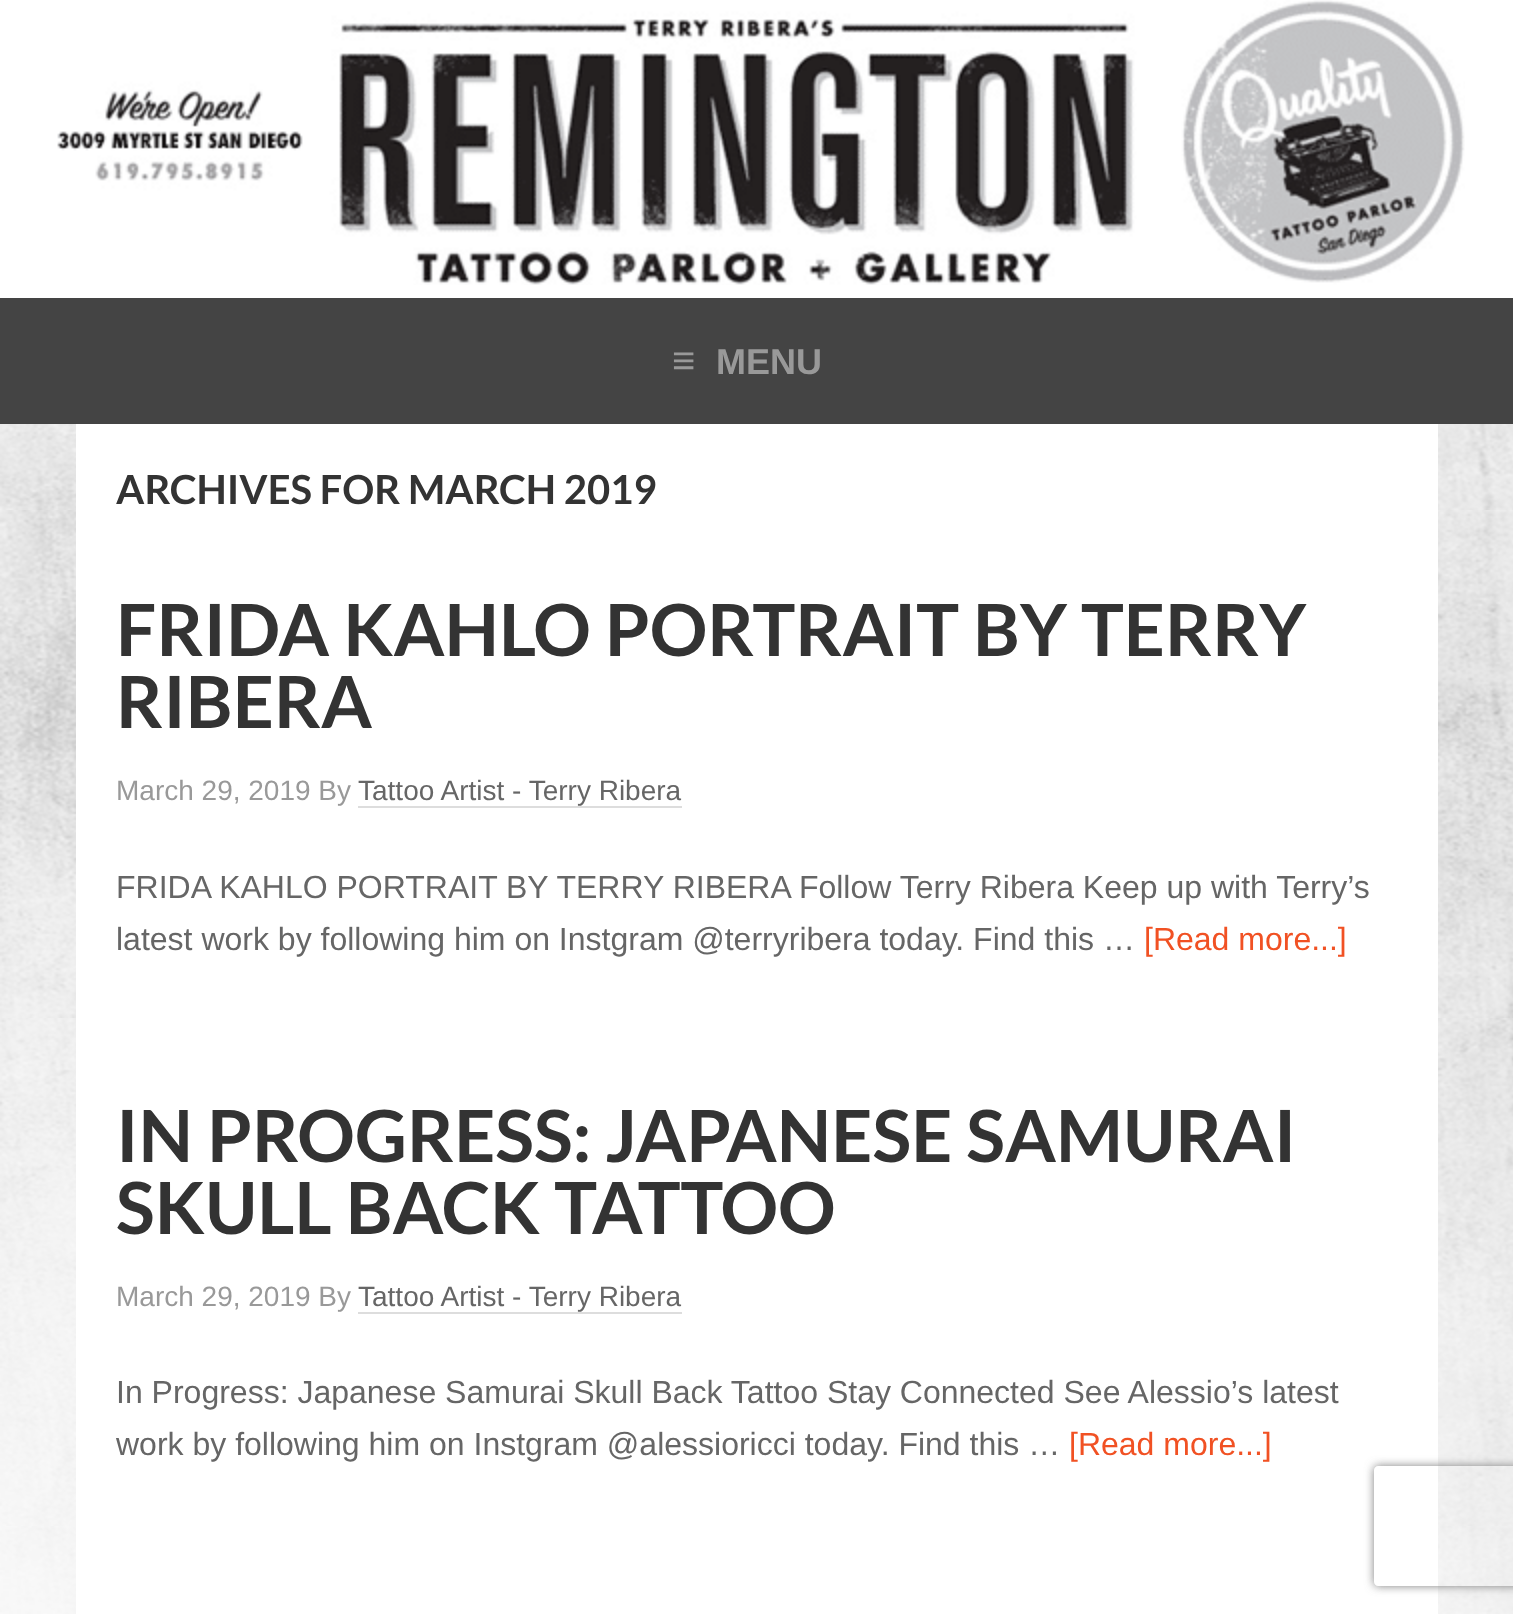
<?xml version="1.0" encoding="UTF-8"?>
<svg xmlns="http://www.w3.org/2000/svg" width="1513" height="1614">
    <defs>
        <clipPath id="clip1"><path d="M 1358 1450 H 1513 V 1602 H 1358 Z M 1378 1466 H 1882 C 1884 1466 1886 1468 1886 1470 V 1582 C 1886 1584 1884 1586 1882 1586 H 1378 C 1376 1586 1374 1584 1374 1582 V 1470 C 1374 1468 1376 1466 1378 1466 Z" clip-rule="evenodd"/></clipPath>
        <filter id="blur1" x="-50%" y="-200%" width="200%" height="500%"><feGaussianBlur stdDeviation="5"/></filter>
    </defs>
    <rect width="100%" height="100%" fill="#FFFFFF"/>
    <image x="0" y="424" width="1513" height="1190" href="img_01.png"/>
    <image x="57" y="0" width="1408" height="285" href="img_02.png"/>
    <rect x="0" y="298" width="1513" height="126" fill="#444444"/>
    <text x="672" y="374" font-family="Liberation Sans" font-size="40" font-weight="700" fill="#999999">≡</text>
    <text x="716" y="374" font-family="Liberation Sans" font-size="36" font-weight="700" fill="#999999">MENU</text>
    <rect x="76" y="424" width="1362" height="1190" fill="#FFFFFF"/>
    <text x="116" y="504" font-family="Lato" font-size="40" font-weight="700" fill="#333333">ARCHIVES FOR MARCH 2019</text>
    <text font-family="Lato" font-size="72" font-weight="700" fill="#333333">
        <tspan x="116" y="656">FRIDA KAHLO PORTRAIT BY TERRY</tspan>
        <tspan x="116" y="728">RIBERA</tspan>
    </text>
    <text x="116" y="800" font-family="Liberation Sans" font-size="28" fill="#999999">March 29, 2019 By</text>
    <text x="358" y="800" font-family="Liberation Sans" font-size="28" fill="#666666">Tattoo Artist - Terry Ribera</text>
    <rect x="358" y="806" width="324" height="2" fill="#DDDDDD"/>
    <text font-family="Liberation Sans" font-size="32" fill="#666666">
        <tspan x="116" y="898">FRIDA KAHLO PORTRAIT BY TERRY RIBERA Follow Terry Ribera Keep up with Terry’s</tspan>
        <tspan x="116" y="950">latest work by following him on Instgram @terryribera today. Find this …</tspan>
    </text>
    <text x="1144" y="950" font-family="Liberation Sans" font-size="32" fill="#F15123">[Read more...]</text>
    <text font-family="Lato" font-size="72" font-weight="700" fill="#333333">
        <tspan x="116" y="1162">IN PROGRESS: JAPANESE SAMURAI</tspan>
        <tspan x="116" y="1234">SKULL BACK TATTOO</tspan>
    </text>
    <text x="116" y="1306" font-family="Liberation Sans" font-size="28" fill="#999999">March 29, 2019 By</text>
    <text x="358" y="1306" font-family="Liberation Sans" font-size="28" fill="#666666">Tattoo Artist - Terry Ribera</text>
    <rect x="358" y="1312" width="324" height="2" fill="#DDDDDD"/>
    <text font-family="Liberation Sans" font-size="32" fill="#666666">
        <tspan x="116" y="1403">In Progress: Japanese Samurai Skull Back Tattoo Stay Connected See Alessio’s latest</tspan>
        <tspan x="116" y="1455">work by following him on Instgram @alessioricci today. Find this …</tspan>
    </text>
    <text x="1069" y="1455" font-family="Liberation Sans" font-size="32" fill="#F15123">[Read more...]</text>
    <g clip-path="url(#clip1)">
        <rect x="1374" y="1466" width="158" height="120" rx="4" fill="#808080" filter="url(#blur1)"/>
    </g>
</svg>
